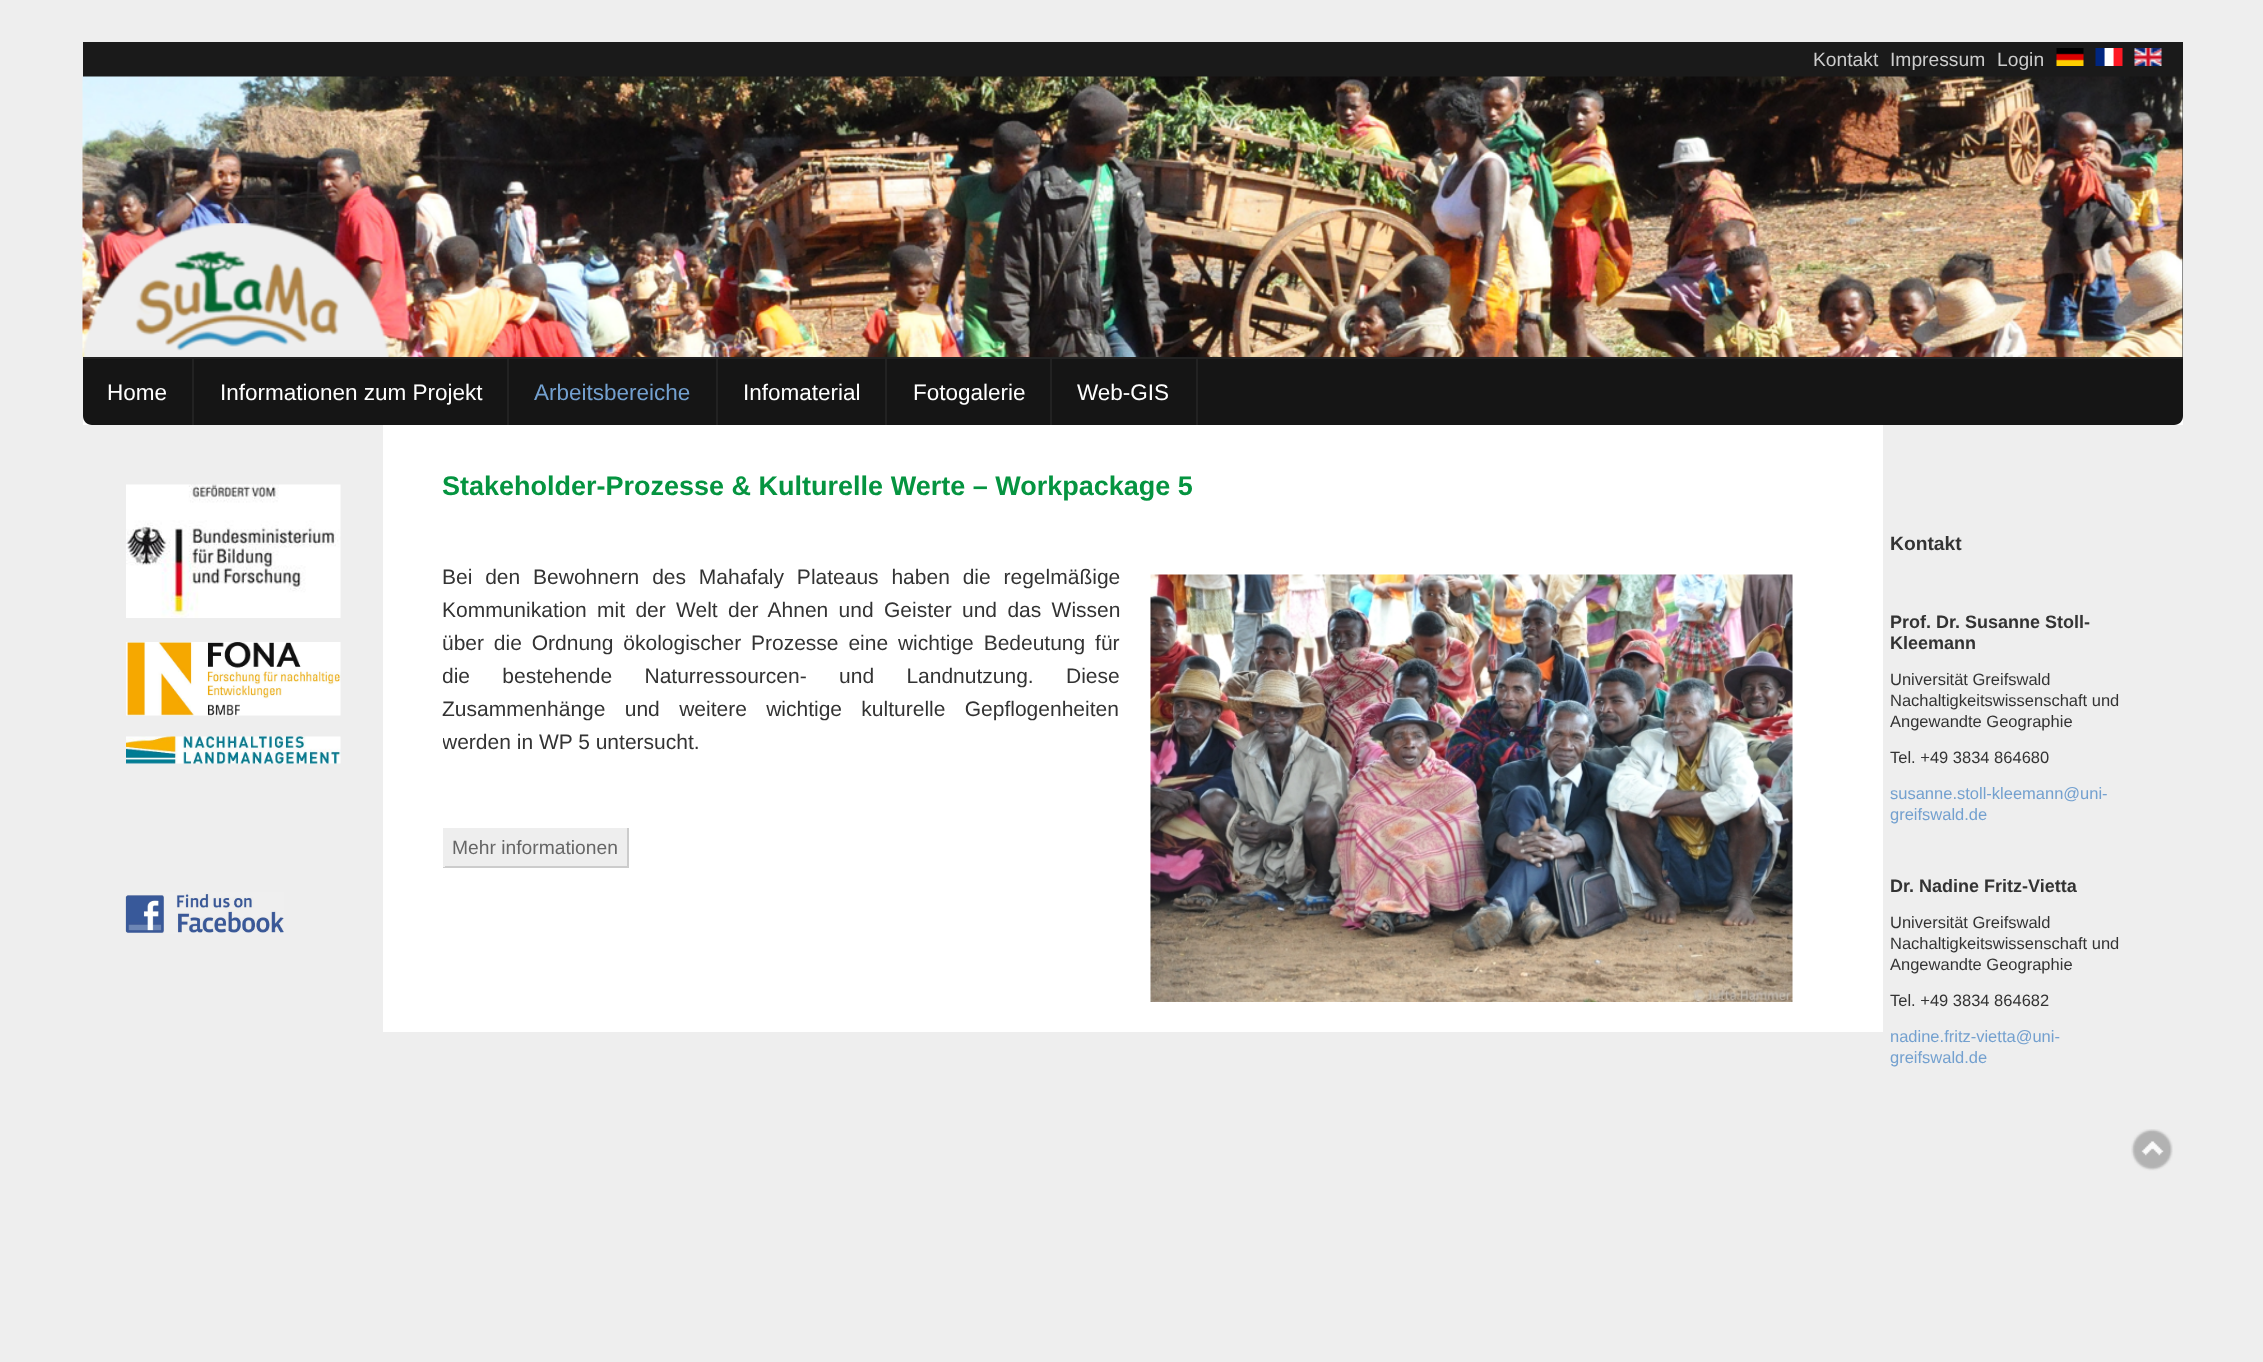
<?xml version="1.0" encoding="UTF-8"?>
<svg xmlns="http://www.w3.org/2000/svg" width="2263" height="1362">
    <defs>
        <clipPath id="clip1"><rect x="443" y="425" width="1380" height="607"/></clipPath>
    </defs>
    <rect width="100%" height="100%" fill="#EEEEEE"/>
    <rect x="83" y="42" width="2100" height="315" fill="#1A1A1A"/>
    <text x="1813" y="66" font-family="Liberation Sans" font-size="19.25" fill="#CCCCCC">Kontakt</text>
    <text x="1890" y="66" font-family="Liberation Sans" font-size="19.25" fill="#CCCCCC">Impressum</text>
    <text x="1997" y="66" font-family="Liberation Sans" font-size="19.25" fill="#CCCCCC">Login</text>
    <image x="2056" y="48" width="28" height="18" href="img_01.png"/>
    <image x="2095" y="48" width="28" height="18" href="img_02.png"/>
    <image x="2134" y="48" width="28" height="18" href="img_03.png"/>
    <rect x="83" y="416" width="2100" height="9" fill="#FFFFFF"/>
    <image x="82" y="76" width="2101" height="281" href="img_04.png"/>
    <path d="M 83 357 H 2183 V 416 C 2183 421 2179 425 2174 425 H 92 C 87 425 83 421 83 416 Z" fill="#151515"/>
    <rect x="83" y="357" width="2100" height="2" fill="#222222"/>
    <rect x="192" y="359" width="2" height="66" fill="#222222"/>
    <text x="107" y="400" font-family="Liberation Sans" font-size="22.5" fill="#FFFFFF">Home</text>
    <rect x="507" y="359" width="2" height="66" fill="#222222"/>
    <text x="220" y="400" font-family="Liberation Sans" font-size="22.5" fill="#FFFFFF">Informationen zum Projekt</text>
    <rect x="716" y="359" width="2" height="66" fill="#222222"/>
    <text x="534" y="400" font-family="Liberation Sans" font-size="22.5" fill="#73A0CF">Arbeitsbereiche</text>
    <rect x="885" y="359" width="2" height="66" fill="#222222"/>
    <text x="743" y="400" font-family="Liberation Sans" font-size="22.5" fill="#FFFFFF">Infomaterial</text>
    <rect x="1050" y="359" width="2" height="66" fill="#222222"/>
    <text x="913" y="400" font-family="Liberation Sans" font-size="22.5" fill="#FFFFFF">Fotogalerie</text>
    <rect x="1196" y="359" width="2" height="66" fill="#222222"/>
    <text x="1077" y="400" font-family="Liberation Sans" font-size="22.5" fill="#FFFFFF">Web-GIS</text>
    <image x="126" y="484" width="215" height="134" href="img_05.png"/>
    <image x="126" y="642" width="215" height="74" href="img_06.png"/>
    <image x="126" y="736" width="215" height="28" href="img_07.png"/>
    <image x="125" y="892" width="159" height="42" href="img_08.png"/>
    <rect x="383" y="425" width="1500" height="607" fill="#FFFFFF"/>
    <text x="442" y="495" font-family="Liberation Sans" font-size="27" font-weight="700" fill="#059440">Stakeholder-Prozesse &amp; Kulturelle Werte – Workpackage 5</text>
    <text font-family="Liberation Sans" font-size="21" fill="#333333">
        <tspan x="442" y="584" word-spacing="7">Bei den Bewohnern des Mahafaly Plateaus haben die regelmäßige</tspan>
        <tspan x="442" y="617" word-spacing="4.5">Kommunikation mit der Welt der Ahnen und Geister und das Wissen</tspan>
        <tspan x="442" y="650" word-spacing="4">über die Ordnung ökologischer Prozesse eine wichtige Bedeutung für</tspan>
    </text>
    <g clip-path="url(#clip1)">
        <text x="442" y="683" word-spacing="26.5" font-family="Liberation Sans" font-size="21" fill="#333333">die bestehende Naturressourcen- und Landnutzung. Diese</text>
    </g>
    <text x="442" y="716" word-spacing="13.5" font-family="Liberation Sans" font-size="21" fill="#333333">Zusammenhänge und weitere wichtige kulturelle Gepflogenheiten</text>
    <g clip-path="url(#clip1)">
        <text x="442" y="749" font-family="Liberation Sans" font-size="21" fill="#333333">werden in WP 5 untersucht.</text>
    </g>
    <image x="1150" y="574" width="643" height="428" href="img_09.png"/>
    <rect x="445" y="828" width="182" height="38" fill="#EEEEEE"/>
    <rect x="627" y="828" width="2" height="39" fill="#CCCCCC"/>
    <rect x="443" y="866" width="186" height="2" fill="#CCCCCC"/>
    <rect x="443" y="828" width="2" height="39" fill="#EEEEEE"/>
    <text x="452" y="854" font-family="Liberation Sans" font-size="19.25" fill="#666666">Mehr informationen</text>
    <text x="1890" y="550" font-family="Liberation Sans" font-size="19.25" font-weight="700" fill="#333333">Kontakt</text>
    <text font-family="Liberation Sans" font-size="18" font-weight="700" fill="#333333">
        <tspan x="1890" y="628">Prof. Dr. Susanne Stoll-</tspan>
        <tspan x="1890" y="649">Kleemann</tspan>
    </text>
    <text font-family="Liberation Sans" font-size="16.5" fill="#333333">
        <tspan x="1890" y="685">Universität Greifswald</tspan>
        <tspan x="1890" y="706">Nachaltigkeitswissenschaft und</tspan>
        <tspan x="1890" y="727">Angewandte Geographie</tspan>
    </text>
    <text x="1890" y="763" font-family="Liberation Sans" font-size="16.5" fill="#333333">Tel. +49 3834 864680</text>
    <text font-family="Liberation Sans" font-size="16.5" fill="#73A0CF">
        <tspan x="1890" y="799">susanne.stoll-kleemann@uni-</tspan>
        <tspan x="1890" y="820">greifswald.de</tspan>
    </text>
    <text x="1890" y="892" font-family="Liberation Sans" font-size="18" font-weight="700" fill="#333333">Dr. Nadine Fritz-Vietta</text>
    <text font-family="Liberation Sans" font-size="16.5" fill="#333333">
        <tspan x="1890" y="928">Universität Greifswald</tspan>
        <tspan x="1890" y="949">Nachaltigkeitswissenschaft und</tspan>
        <tspan x="1890" y="970">Angewandte Geographie</tspan>
    </text>
    <text x="1890" y="1006" font-family="Liberation Sans" font-size="16.5" fill="#333333">Tel. +49 3834 864682</text>
    <text font-family="Liberation Sans" font-size="16.5" fill="#73A0CF">
        <tspan x="1890" y="1042">nadine.fritz-vietta@uni-</tspan>
        <tspan x="1890" y="1063">greifswald.de</tspan>
    </text>
    <image x="2131" y="1129" width="42" height="42" href="img_10.png"/>
</svg>
